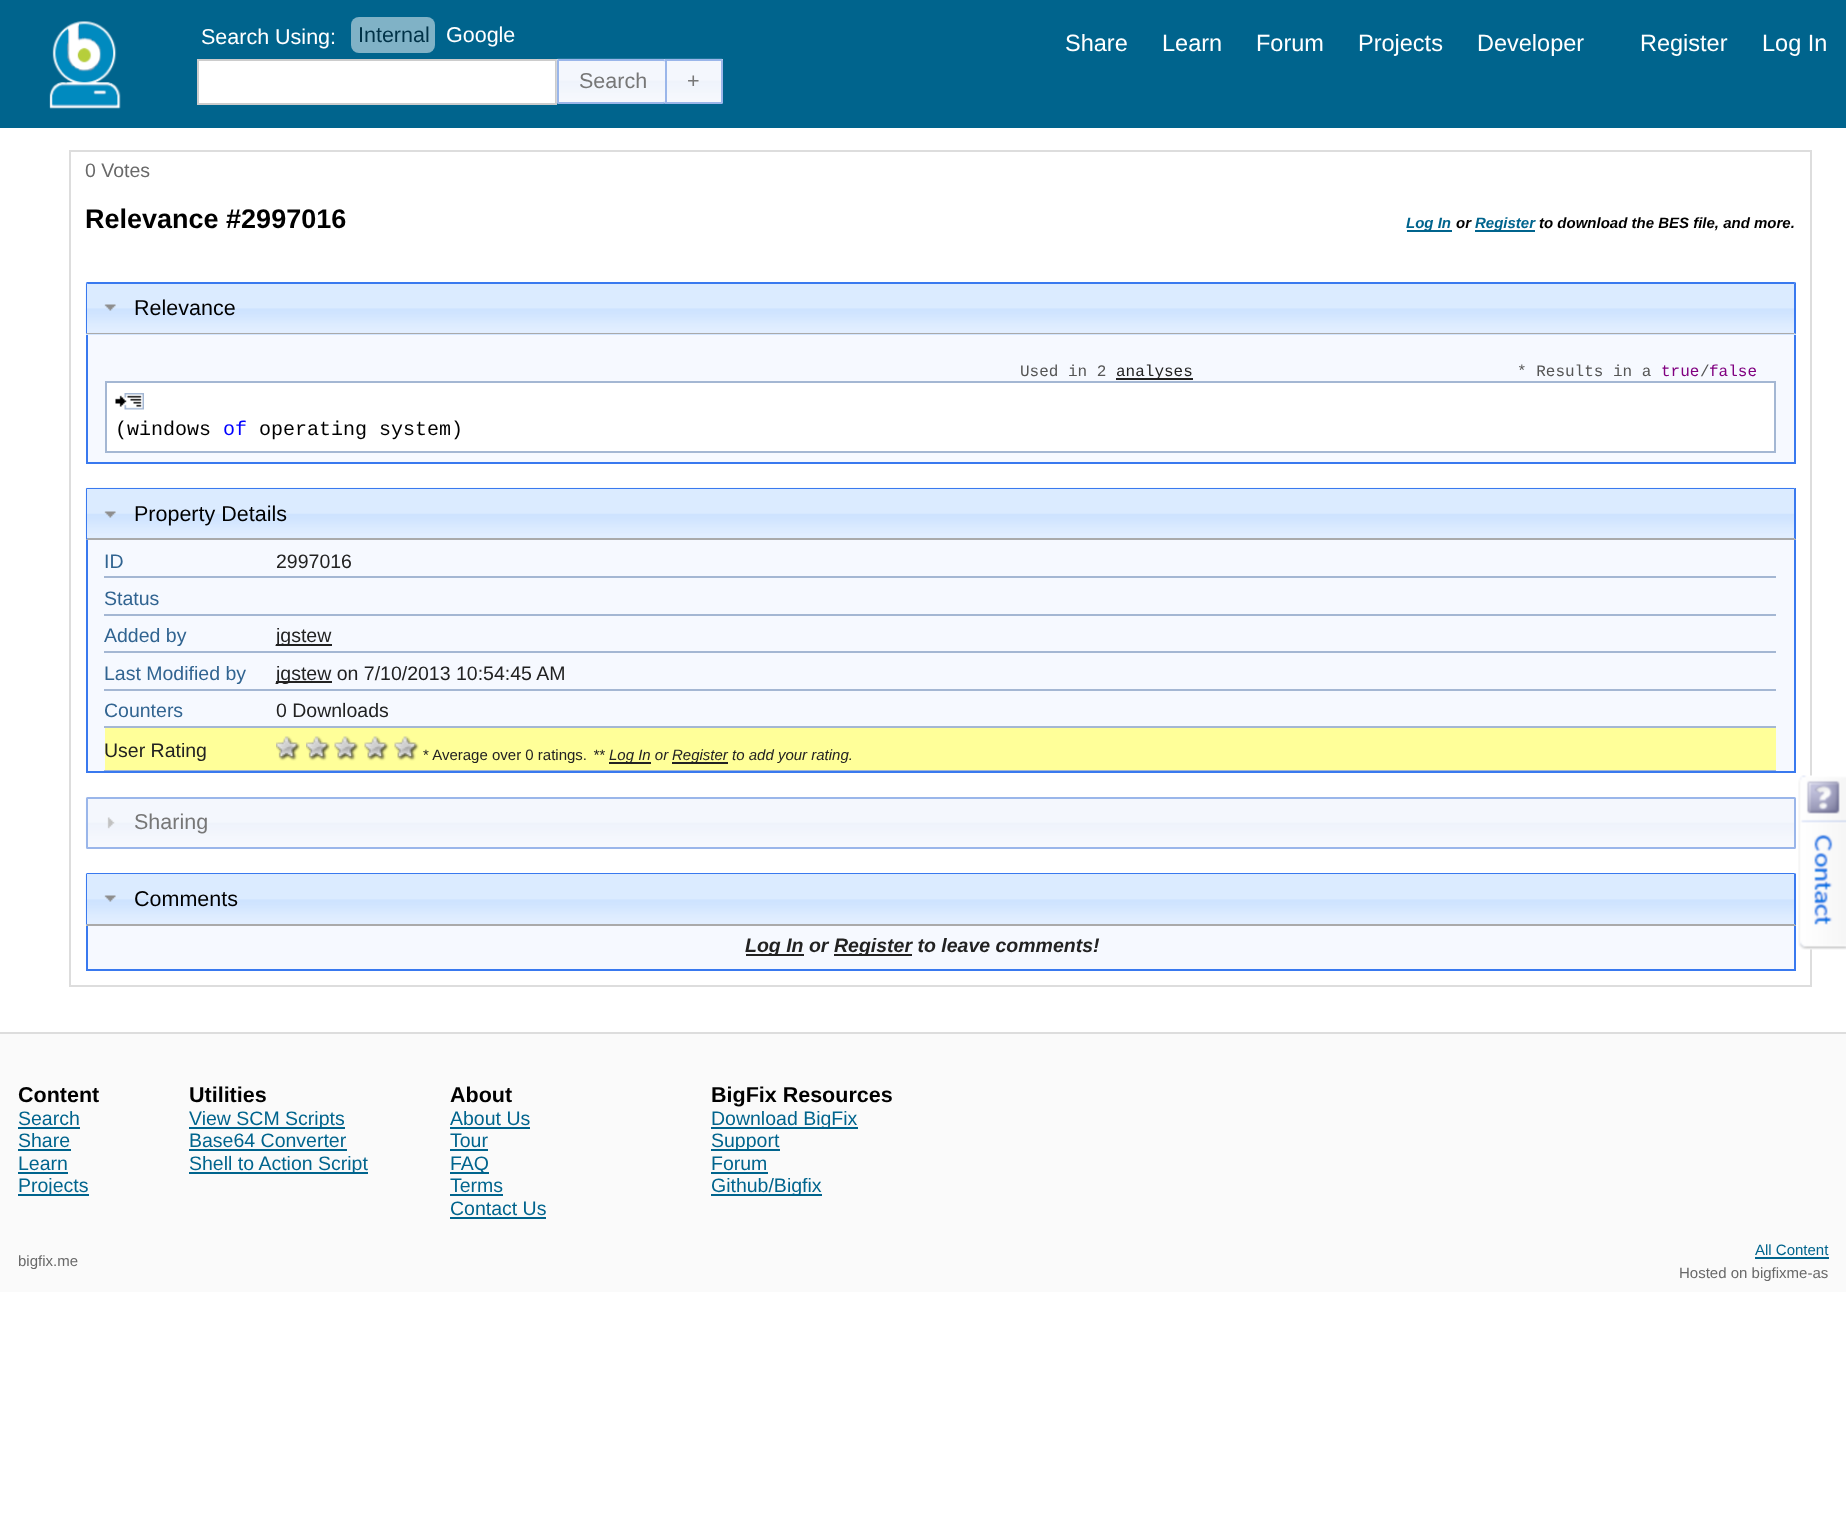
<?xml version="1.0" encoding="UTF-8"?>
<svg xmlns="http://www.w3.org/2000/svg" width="1846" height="1539">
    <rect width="100%" height="100%" fill="#FFFFFF"/>
    <rect x="0" y="0" width="1846" height="128" fill="#00648D"/>
    <image x="49" y="21" width="72" height="88" href="img_01.png"/>
    <text x="201" y="44" font-family="Liberation Sans" font-size="21.5" fill="#FFFFFF">Search Using:</text>
    <rect x="351" y="17" width="84" height="36" rx="8" fill="#80B2C6"/>
    <text x="358" y="42" font-family="Liberation Sans" font-size="21.5" fill="#003247">Internal</text>
    <text x="446" y="42" font-family="Liberation Sans" font-size="21.5" fill="#FFFFFF">Google</text>
    <rect x="198" y="60" width="358" height="44" fill="#FFFFFF" stroke="#CCCCCC" stroke-width="2"/>
    <image x="556" y="58" width="109" height="46" href="img_02.png"/>
    <path d="M 558.5 60 H 663 C 667 60 670 63 670 67 V 96 C 670 100 667 103 663 103 H 558.5 C 558 103 558 103 558 102.5 V 60.5 C 558 60 558 60 558.5 60 Z" fill="none" stroke="#9AB6EA" stroke-width="2"/>
    <text x="579" y="88" font-family="Liberation Sans" font-size="21.5" fill="#777777">Search</text>
    <image x="664" y="58" width="59" height="46" href="img_03.png"/>
    <path d="M 666 60 H 721.5 C 722 60 722 60 722 60.5 V 102.5 C 722 103 722 103 721.5 103 H 666 Z" fill="none" stroke="#9AB6EA" stroke-width="2"/>
    <text x="687" y="88" font-family="Liberation Sans" font-size="21.5" fill="#777777">+</text>
    <text x="1065" y="51" font-family="Liberation Sans" font-size="23.5" fill="#FFFFFF">Share</text>
    <text x="1162" y="51" font-family="Liberation Sans" font-size="23.5" fill="#FFFFFF">Learn</text>
    <text x="1256" y="51" font-family="Liberation Sans" font-size="23.5" fill="#FFFFFF">Forum</text>
    <text x="1358" y="51" font-family="Liberation Sans" font-size="23.5" fill="#FFFFFF">Projects</text>
    <text x="1477" y="51" font-family="Liberation Sans" font-size="23.5" fill="#FFFFFF">Developer</text>
    <text x="1640" y="51" font-family="Liberation Sans" font-size="23.5" fill="#FFFFFF">Register</text>
    <text x="1762" y="51" font-family="Liberation Sans" font-size="23.5" fill="#FFFFFF">Log In</text>
    <rect x="70" y="151" width="1741" height="835" fill="none" stroke="#DDDDDD" stroke-width="2"/>
    <text x="85" y="177" font-family="Liberation Sans" font-size="19.5" fill="#696969">0 Votes</text>
    <text x="85" y="228" font-family="Liberation Sans" font-size="27" font-weight="700" fill="#000000">Relevance #2997016</text>
    <rect x="1407" y="230" width="45" height="2" fill="#00648D"/>
    <text x="1406" y="228" font-family="Liberation Sans" font-size="15" font-weight="700" font-style="italic" fill="#00648D">Log In</text>
    <text x="1456" y="228" font-family="Liberation Sans" font-size="15" font-weight="700" font-style="italic" fill="#000000">or</text>
    <rect x="1475" y="230" width="60" height="2" fill="#00648D"/>
    <text x="1475" y="228" font-family="Liberation Sans" font-size="15" font-weight="700" font-style="italic" fill="#00648D">Register</text>
    <text x="1539" y="228" font-family="Liberation Sans" font-size="15" font-weight="700" font-style="italic" fill="#000000">to download the BES file, and more.</text>
    <path d="M 87.5 282 H 1794.5 C 1795.5 282 1796 282.5 1796 283.5 V 335 H 86 V 283.5 C 86 282.5 86.5 282 87.5 282 Z" fill="#CEE3FF"/>
    <image x="85" y="282" width="1711" height="53" href="img_04.png"/>
    <path d="M 87 282 L 86 283 L 88 284 H 1794 L 1795 282 H 1794 Z" fill="#3979EF"/>
    <path d="M 1796 334 L 1794 333 V 284 L 1795 282 L 1796 283 Z" fill="#3979EF"/>
    <path d="M 1795 334 H 86 L 87 333 H 1794 Z" fill="#AAAAAA"/>
    <path d="M 87 284 H 88 L 86 283 V 334 L 87 333 Z" fill="#3979EF"/>
    <image x="104" y="304" width="12" height="7" href="img_05.png"/>
    <text x="134" y="315" font-family="Liberation Sans" font-size="21.5" fill="#000000">Relevance</text>
    <rect x="88" y="335" width="1706" height="127" fill="#F6F9FF"/>
    <rect x="1794" y="335" width="2" height="129" fill="#3979EF"/>
    <rect x="87" y="462" width="1709" height="2" fill="#3979EF"/>
    <rect x="86" y="335" width="2" height="129" fill="#3979EF"/>
    <text x="1020" y="376" font-family="Liberation Mono" font-size="16" fill="#565656">Used in 2</text>
    <rect x="1116" y="378" width="77" height="2" fill="#222222"/>
    <text x="1116" y="376" font-family="Liberation Mono" font-size="16" fill="#222222">analyses</text>
    <text x="1517" y="376" font-family="Liberation Mono" font-size="16" fill="#565656">* Results in a</text>
    <text x="1661" y="376" font-family="Liberation Mono" font-size="16" fill="#800080">true false</text>
    <text x="1700" y="376" font-family="Liberation Mono" font-size="16" fill="#565656">/</text>
    <rect x="106" y="382" width="1669" height="70" fill="#FFFFFF" stroke="#A4B7D3" stroke-width="2"/>
    <image x="115" y="393" width="29" height="17" href="img_06.png"/>
    <text x="115" y="435" font-family="Liberation Mono" font-size="20" fill="#000000">(windows</text>
    <text x="223" y="435" font-family="Liberation Mono" font-size="20" fill="#0000FF">of</text>
    <text x="259" y="435" font-family="Liberation Mono" font-size="20" fill="#000000">operating system)</text>
    <image x="85" y="487" width="1711" height="53" href="img_07.png"/>
    <path d="M 87 489 H 1794 L 1795 488 H 86 Z" fill="#3979EF"/>
    <path d="M 1796 488 V 540 L 1794 538 V 489 L 1795 488 Z" fill="#3979EF"/>
    <path d="M 1796 540 L 1794 538 H 88 L 86 540 Z" fill="#AAAAAA"/>
    <path d="M 87 489 L 86 488 V 540 L 88 538 H 87 Z" fill="#3979EF"/>
    <image x="104" y="511" width="12" height="7" href="img_08.png"/>
    <text x="134" y="521" font-family="Liberation Sans" font-size="21.5" fill="#000000">Property Details</text>
    <rect x="88" y="540" width="1706" height="231" fill="#F6F9FF"/>
    <rect x="1794" y="540" width="2" height="233" fill="#3979EF"/>
    <rect x="87" y="771" width="1709" height="2" fill="#3979EF"/>
    <rect x="86" y="540" width="2" height="233" fill="#3979EF"/>
    <text x="104" y="568" font-family="Liberation Sans" font-size="19.5" fill="#316491">ID</text>
    <rect x="104" y="576" width="1672" height="2" fill="#A4B7D3"/>
    <text x="276" y="568" font-family="Liberation Sans" font-size="19.5" fill="#222222">2997016</text>
    <text x="104" y="605" font-family="Liberation Sans" font-size="19.5" fill="#316491">Status</text>
    <rect x="104" y="614" width="1672" height="2" fill="#A4B7D3"/>
    <text x="104" y="642" font-family="Liberation Sans" font-size="19.5" fill="#316491">Added by</text>
    <rect x="104" y="651" width="1672" height="2" fill="#A4B7D3"/>
    <rect x="276" y="644" width="56" height="2" fill="#222222"/>
    <text x="276" y="642" font-family="Liberation Sans" font-size="19.5" fill="#222222">jgstew</text>
    <text x="104" y="680" font-family="Liberation Sans" font-size="19.5" fill="#316491">Last Modified by</text>
    <rect x="104" y="689" width="1672" height="2" fill="#A4B7D3"/>
    <rect x="276" y="681" width="56" height="2" fill="#222222"/>
    <text x="276" y="680" font-family="Liberation Sans" font-size="19.5" fill="#222222">jgstew on 7/10/2013 10:54:45 AM</text>
    <text x="104" y="717" font-family="Liberation Sans" font-size="19.5" fill="#316491">Counters</text>
    <rect x="104" y="726" width="1672" height="2" fill="#A4B7D3"/>
    <text x="276" y="717" font-family="Liberation Sans" font-size="19.5" fill="#222222">0 Downloads</text>
    <rect x="105" y="728" width="1671" height="42" fill="#FFFF99"/>
    <text x="104" y="757" font-family="Liberation Sans" font-size="19.5" fill="#222222">User Rating</text>
    <rect x="104" y="770" width="1672" height="1" fill="#A4B7D3"/>
    <image x="276" y="736" width="24" height="25" href="img_09.png"/>
    <image x="306" y="736" width="24" height="25" href="img_10.png"/>
    <image x="334" y="736" width="25" height="25" href="img_11.png"/>
    <image x="364" y="736" width="25" height="25" href="img_12.png"/>
    <image x="394" y="736" width="25" height="25" href="img_12.png"/>
    <text x="423" y="760" font-family="Liberation Sans" font-size="15" fill="#222222">* Average over 0 ratings.</text>
    <text x="593" y="760" font-family="Liberation Sans" font-size="15" font-style="italic" fill="#222222">**</text>
    <rect x="609" y="762" width="42" height="2" fill="#222222"/>
    <text x="609" y="760" font-family="Liberation Sans" font-size="15" font-style="italic" fill="#222222">Log In or</text>
    <rect x="672" y="762" width="56" height="2" fill="#222222"/>
    <text x="672" y="760" font-family="Liberation Sans" font-size="15" font-style="italic" fill="#222222">Register to add your rating.</text>
    <image x="85" y="797" width="1710" height="52" href="img_13.png"/>
    <rect x="87" y="798" width="1708" height="50" rx="0.5" fill="none" stroke="#9AB6EA" stroke-width="2"/>
    <image x="107" y="817" width="8" height="12" href="img_14.png"/>
    <text x="134" y="829" font-family="Liberation Sans" font-size="21.5" fill="#777777">Sharing</text>
    <image x="85" y="873" width="1711" height="53" href="img_04.png"/>
    <path d="M 87 873 L 86 874 H 87 H 1794 L 1795 873 H 1794 Z" fill="#3979EF"/>
    <path d="M 1795 873 L 1796 874 V 926 L 1794 924 V 874 Z" fill="#3979EF"/>
    <path d="M 1796 926 H 86 L 87 924 H 1794 Z" fill="#AAAAAA"/>
    <path d="M 86 874 V 925 L 87 924 V 874 Z" fill="#3979EF"/>
    <image x="104" y="895" width="12" height="7" href="img_05.png"/>
    <text x="134" y="906" font-family="Liberation Sans" font-size="21.5" fill="#000000">Comments</text>
    <rect x="88" y="926" width="1706" height="43" fill="#F6F9FF"/>
    <rect x="1794" y="926" width="2" height="45" fill="#3979EF"/>
    <rect x="87" y="969" width="1709" height="2" fill="#3979EF"/>
    <rect x="86" y="926" width="2" height="45" fill="#3979EF"/>
    <rect x="746" y="954" width="58" height="2" fill="#222222"/>
    <text x="745" y="952" font-family="Liberation Sans" font-size="19.5" font-weight="700" font-style="italic" fill="#222222">Log In or</text>
    <rect x="834" y="954" width="78" height="2" fill="#222222"/>
    <text x="834" y="952" font-family="Liberation Sans" font-size="19.5" font-weight="700" font-style="italic" fill="#222222">Register to leave comments!</text>
    <image x="1798" y="775" width="48" height="175" href="img_15.png"/>
    <rect x="0" y="1034" width="1846" height="258" fill="#FAFAFA"/>
    <rect x="0" y="1032" width="1846" height="2" fill="#DDDDDD"/>
    <text x="18" y="1102" font-family="Liberation Sans" font-size="21.5" font-weight="700" fill="#000000">Content</text>
    <text x="18" y="1125" font-family="Liberation Sans" font-size="19.5" fill="#00648D">Search</text>
    <rect x="18" y="1127" width="62" height="2" fill="#00648D"/>
    <text x="18" y="1147" font-family="Liberation Sans" font-size="19.5" fill="#00648D">Share</text>
    <rect x="18" y="1149" width="53" height="2" fill="#00648D"/>
    <text x="18" y="1170" font-family="Liberation Sans" font-size="19.5" fill="#00648D">Learn</text>
    <rect x="18" y="1172" width="50" height="2" fill="#00648D"/>
    <rect x="18" y="1194" width="71" height="2" fill="#00648D"/>
    <text x="18" y="1192" font-family="Liberation Sans" font-size="19.5" fill="#00648D">Projects</text>
    <text x="189" y="1102" font-family="Liberation Sans" font-size="21.5" font-weight="700" fill="#000000">Utilities</text>
    <rect x="189" y="1127" width="156" height="2" fill="#00648D"/>
    <text font-family="Liberation Sans" font-size="19.5" fill="#00648D">
        <tspan x="189" y="1125">View SCM Scripts</tspan>
        <tspan x="189" y="1147">Base64 Converter</tspan>
    </text>
    <rect x="189" y="1149" width="158" height="2" fill="#00648D"/>
    <rect x="189" y="1172" width="179" height="2" fill="#00648D"/>
    <text x="189" y="1170" font-family="Liberation Sans" font-size="19.5" fill="#00648D">Shell to Action Script</text>
    <text x="450" y="1102" font-family="Liberation Sans" font-size="21.5" font-weight="700" fill="#000000">About</text>
    <text x="450" y="1125" font-family="Liberation Sans" font-size="19.5" fill="#00648D">About Us</text>
    <rect x="450" y="1127" width="80" height="2" fill="#00648D"/>
    <text x="450" y="1147" font-family="Liberation Sans" font-size="19.5" fill="#00648D">Tour</text>
    <rect x="450" y="1149" width="38" height="2" fill="#00648D"/>
    <rect x="450" y="1172" width="39" height="2" fill="#00648D"/>
    <text font-family="Liberation Sans" font-size="19.5" fill="#00648D">
        <tspan x="450" y="1170">FAQ</tspan>
        <tspan x="450" y="1192">Terms</tspan>
    </text>
    <rect x="450" y="1194" width="53" height="2" fill="#00648D"/>
    <text x="450" y="1215" font-family="Liberation Sans" font-size="19.5" fill="#00648D">Contact Us</text>
    <rect x="450" y="1217" width="96" height="2" fill="#00648D"/>
    <text x="711" y="1102" font-family="Liberation Sans" font-size="21.5" font-weight="700" fill="#000000">BigFix Resources</text>
    <rect x="711" y="1127" width="147" height="2" fill="#00648D"/>
    <text x="711" y="1125" font-family="Liberation Sans" font-size="19.5" fill="#00648D">Download BigFix</text>
    <rect x="711" y="1149" width="69" height="2" fill="#00648D"/>
    <text font-family="Liberation Sans" font-size="19.5" fill="#00648D">
        <tspan x="711" y="1147">Support</tspan>
        <tspan x="711" y="1170">Forum</tspan>
    </text>
    <rect x="711" y="1172" width="57" height="2" fill="#00648D"/>
    <rect x="711" y="1194" width="111" height="2" fill="#00648D"/>
    <text x="711" y="1192" font-family="Liberation Sans" font-size="19.5" fill="#00648D">Github/Bigfix</text>
    <text x="18" y="1266" font-family="Liberation Sans" font-size="15" fill="#696969">bigfix.me</text>
    <text x="1755" y="1255" font-family="Liberation Sans" font-size="15" fill="#00648D">All Content</text>
    <rect x="1755" y="1257" width="74" height="2" fill="#00648D"/>
    <text x="1679" y="1278" font-family="Liberation Sans" font-size="15" fill="#696969">Hosted on bigfixme-as</text>
</svg>
